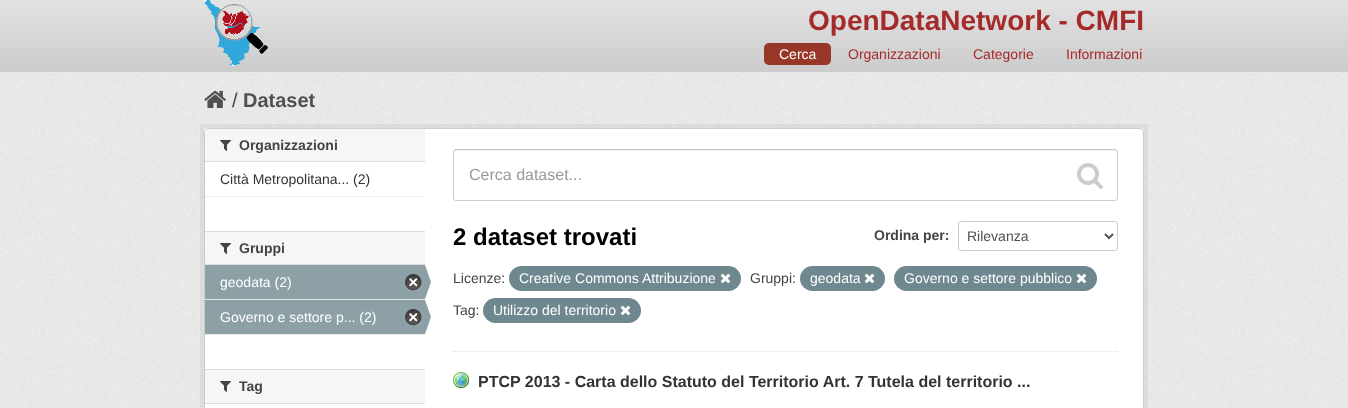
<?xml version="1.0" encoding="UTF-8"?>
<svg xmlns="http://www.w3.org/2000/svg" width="1348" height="408">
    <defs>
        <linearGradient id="g1" gradientUnits="userSpaceOnUse" x1="674" y1="0" x2="674" y2="71"><stop offset="0" stop-color="#E2E2E2"/><stop offset="1" stop-color="#CCCCCC"/></linearGradient>
    </defs>
    <rect width="100%" height="100%" fill="#FFFFFF"/>
    <rect x="0" y="0" width="1348" height="71" fill="url(#g1)"/>
    <rect x="0" y="71" width="1348" height="1" fill="#CCCCCC"/>
    <image x="204" y="0" width="64" height="66" href="img_01.png"/>
    <text x="808" y="30" font-family="Liberation Sans" font-size="28" font-weight="700" fill="#A52A2A">OpenDataNetwork - CMFI</text>
    <rect x="764" y="43" width="67" height="22" rx="5" fill="#983627"/>
    <text x="779" y="59" font-family="Liberation Sans" font-size="14" fill="#FFFFFF">Cerca</text>
    <text x="848" y="59" font-family="Liberation Sans" font-size="14" fill="#A52A2A">Organizzazioni</text>
    <text x="973" y="59" font-family="Liberation Sans" font-size="14" fill="#A52A2A">Categorie</text>
    <text x="1066" y="59" font-family="Liberation Sans" font-size="14" fill="#A52A2A">Informazioni</text>
    <rect x="0" y="72" width="1348" height="336" fill="#EEEEEE"/>
    <image x="0" y="72" width="1348" height="336" href="img_02.png"/>
    <image x="204" y="90" width="22" height="18" href="img_03.png"/>
    <text x="232" y="107" font-family="Liberation Sans" font-size="20" fill="#444444">/</text>
    <text x="243" y="107" font-family="Liberation Sans" font-size="20" font-weight="700" fill="#505050">Dataset</text>
    <rect x="202" y="126" width="944" height="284" fill="none" stroke="#000000" stroke-opacity="0.05" stroke-width="4"/>
    <rect x="204" y="128" width="940" height="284" rx="4" fill="#FFFFFF"/>
    <rect x="205" y="128" width="2" height="1" fill="#FFFFFF"/>
    <rect x="204.5" y="128.5" width="939" height="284" rx="3.5" fill="none" stroke="#CCCCCC"/>
    <path d="M 208 129 H 425 V 162 H 205 V 132 C 205 130.5 206.5 129 208 129 Z" fill="#F6F6F6"/>
    <rect x="205" y="161" width="220" height="1" fill="#DDDDDD"/>
    <image x="220" y="140" width="11" height="11" href="img_04.png"/>
    <text x="239" y="150" font-family="Liberation Sans" font-size="14" font-weight="700" fill="#444444">Organizzazioni</text>
    <text x="220" y="184" font-family="Liberation Sans" font-size="14" fill="#333333">Città Metropolitana... (2)</text>
    <path d="M 205 196.5 H 425" fill="none" stroke="#DDDDDD" stroke-dasharray="1 1"/>
    <rect x="205" y="232" width="220" height="32" fill="#F6F6F6"/>
    <rect x="205" y="231" width="220" height="1" fill="#DDDDDD"/>
    <rect x="205" y="264" width="220" height="1" fill="#DDDDDD"/>
    <image x="220" y="243" width="11" height="11" href="img_04.png"/>
    <text x="239" y="253" font-family="Liberation Sans" font-size="14" font-weight="700" fill="#444444">Gruppi</text>
    <rect x="206" y="299" width="219" height="1" fill="#F6F6F6"/>
    <path d="M 205 299.5 H 425" fill="none" stroke="#DDDDDD" stroke-dasharray="1 1"/>
    <rect x="205" y="265" width="220" height="34" fill="#8CA0A6"/>
    <text x="220" y="287" font-family="Liberation Sans" font-size="14" fill="#FFFFFF">geodata (2)</text>
    <image x="405" y="274" width="17" height="17" href="img_05.png"/>
    <image x="425" y="265" width="6" height="34" href="img_06.png"/>
    <rect x="205" y="300" width="220" height="34" fill="#8CA0A6"/>
    <text x="220" y="322" font-family="Liberation Sans" font-size="14" fill="#FFFFFF">Governo e settore p... (2)</text>
    <image x="405" y="309" width="17" height="17" href="img_05.png"/>
    <image x="425" y="300" width="6" height="34" href="img_06.png"/>
    <path d="M 205 334.5 H 425" fill="none" stroke="#DDDDDD" stroke-dasharray="1 1"/>
    <rect x="205" y="370" width="220" height="33" fill="#F6F6F6"/>
    <rect x="205" y="369" width="220" height="1" fill="#DDDDDD"/>
    <rect x="205" y="403" width="220" height="1" fill="#DDDDDD"/>
    <image x="220" y="381" width="11" height="11" href="img_04.png"/>
    <text x="239" y="391" font-family="Liberation Sans" font-size="14" font-weight="700" fill="#444444">Tag</text>
    <path d="M 453 351.5 H 1118" fill="none" stroke="#DDDDDD" stroke-dasharray="1 1"/>
    <path d="M 456 151 H 1115 C 1116 151 1117 152 1117 153 C 1117 152 1117 150 1115 150 H 456 C 454 150 454 152 454 153 C 454 152 455 151 456 151 Z" fill="#ECECEC"/>
    <rect x="453.5" y="149.5" width="664" height="51" rx="2.5" fill="none" stroke="#CCCCCC"/>
    <text x="469" y="180" font-family="Liberation Sans" font-size="16" fill="#999999">Cerca dataset...</text>
    <image x="1077" y="163" width="26" height="26" href="img_07.png"/>
    <text x="453" y="245" font-family="Liberation Sans" font-size="24" font-weight="700" fill="#000000">2 dataset trovati</text>
    <text x="874" y="240" font-family="Liberation Sans" font-size="14" font-weight="700" fill="#444444">Ordina per:</text>
    <rect x="958.5" y="221.5" width="159" height="29" rx="2.5" fill="none" stroke="#CCCCCC"/>
    <path d="M 1105 234 L 1109 238 L 1113 234" fill="none" stroke="#555555" stroke-width="2"/>
    <text x="967" y="241" font-family="Liberation Sans" font-size="14" fill="#505050">Rilevanza</text>
    <text x="453" y="283" font-family="Liberation Sans" font-size="14" fill="#444444">Licenze:</text>
    <rect x="509" y="266" width="232" height="25" rx="12.5" fill="#6F8890"/>
    <text x="519" y="283" font-family="Liberation Sans" font-size="14" fill="#FFFFFF">Creative Commons Attribuzione</text>
    <image x="720" y="273" width="11" height="11" href="img_08.png"/>
    <text x="750" y="283" font-family="Liberation Sans" font-size="14" fill="#444444">Gruppi:</text>
    <rect x="800" y="266" width="85" height="25" rx="12.5" fill="#6F8890"/>
    <text x="810" y="283" font-family="Liberation Sans" font-size="14" fill="#FFFFFF">geodata</text>
    <image x="864" y="273" width="11" height="11" href="img_08.png"/>
    <rect x="894" y="266" width="203" height="25" rx="12.5" fill="#6F8890"/>
    <text x="904" y="283" font-family="Liberation Sans" font-size="14" fill="#FFFFFF">Governo e settore pubblico</text>
    <image x="1076" y="273" width="11" height="11" href="img_08.png"/>
    <text x="453" y="315" font-family="Liberation Sans" font-size="14" fill="#444444">Tag:</text>
    <rect x="483" y="298" width="158" height="25" rx="12.5" fill="#6F8890"/>
    <text x="493" y="315" font-family="Liberation Sans" font-size="14" fill="#FFFFFF">Utilizzo del territorio</text>
    <image x="620" y="305" width="11" height="11" href="img_08.png"/>
    <image x="453" y="372" width="16" height="16" href="img_09.png"/>
    <text x="478" y="387" font-family="Liberation Sans" font-size="16" font-weight="700" fill="#333333">PTCP 2013 - Carta dello Statuto del Territorio Art. 7 Tutela del territorio ...</text>
</svg>
